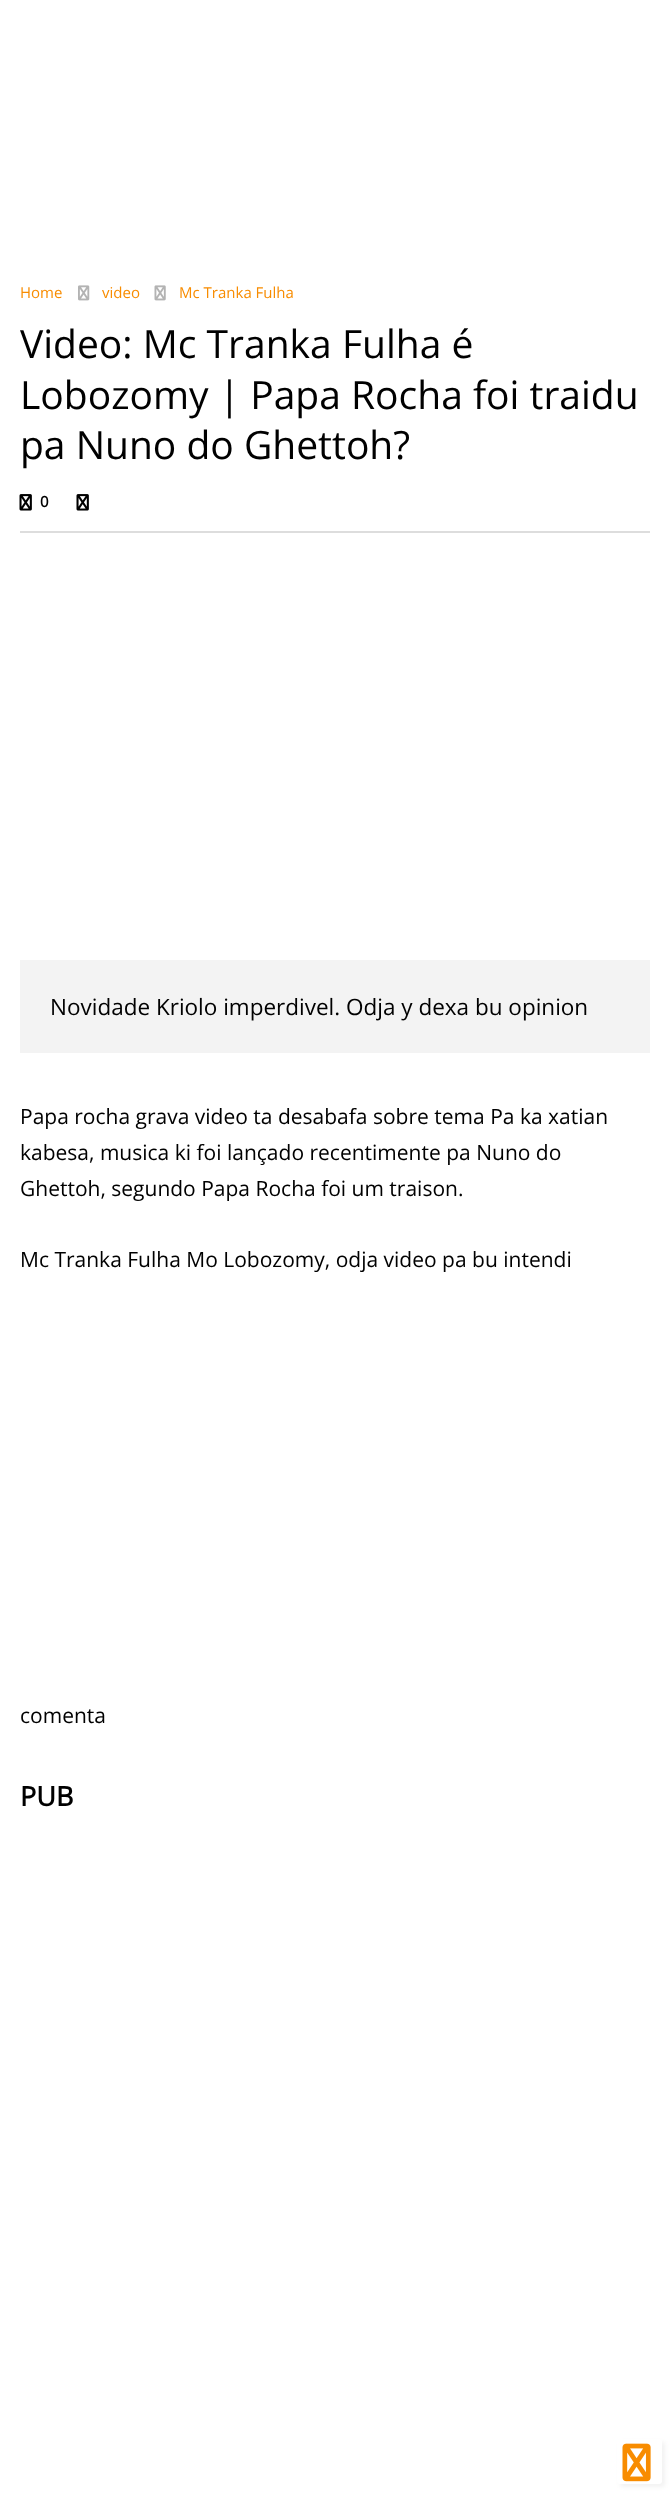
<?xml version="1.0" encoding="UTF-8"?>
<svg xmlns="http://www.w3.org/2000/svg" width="669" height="2498">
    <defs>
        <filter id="blur1" x="-50%" y="-200%" width="200%" height="500%"><feGaussianBlur stdDeviation="2"/></filter>
    </defs>
    <rect width="100%" height="100%" fill="#FFFFFF"/>
    <text x="20" y="298" font-family="Open Sans" font-size="15" fill="#F88C00">Home</text>
    <image x="78" y="285" width="12" height="16" href="img_01.png"/>
    <text x="102" y="298" font-family="Open Sans" font-size="15" fill="#F88C00">video</text>
    <image x="154" y="285" width="12" height="16" href="img_02.png"/>
    <text x="179" y="298" font-family="Open Sans" font-size="15" fill="#F88C00">Mc Tranka Fulha</text>
    <text font-family="Open Sans" font-size="39" fill="#000000">
        <tspan x="20" y="358">Video: Mc Tranka Fulha é</tspan>
        <tspan x="20" y="409">Lobozomy | Papa Rocha foi traidu</tspan>
        <tspan x="20" y="459">pa Nuno do Ghettoh?</tspan>
    </text>
    <rect x="20" y="531" width="630" height="2" fill="#DDDDDD"/>
    <image x="19" y="494" width="13" height="17" href="img_03.png"/>
    <text x="40" y="507" font-family="Open Sans" font-size="15" font-weight="700" fill="#000000">0</text>
    <image x="76" y="494" width="13" height="17" href="img_03.png"/>
    <rect x="20" y="960" width="630" height="93" fill="#F3F3F3"/>
    <text x="50" y="1015" font-family="Open Sans" font-size="22.5" fill="#000000">Novidade Kriolo imperdivel. Odja y dexa bu opinion</text>
    <text font-family="Open Sans" font-size="21" fill="#000000">
        <tspan x="20" y="1124">Papa rocha grava video ta desabafa sobre tema Pa ka xatian</tspan>
        <tspan x="20" y="1160">kabesa, musica ki foi lançado recentimente pa Nuno do</tspan>
        <tspan x="20" y="1196">Ghettoh, segundo Papa Rocha foi um traison.</tspan>
    </text>
    <text x="20" y="1267" font-family="Open Sans" font-size="21" fill="#000000">Mc Tranka Fulha Mo Lobozomy, odja video pa bu intendi</text>
    <text x="20" y="1723" font-family="Open Sans" font-size="21" fill="#000000">comenta</text>
    <text x="20" y="1806" font-family="Open Sans" font-size="27" font-weight="700" fill="#000000">PUB</text>
    <rect x="620" y="2442" width="45" height="45" rx="3" fill="#000000" fill-opacity="0.05" filter="url(#blur1)"/>
    <rect x="617" y="2439" width="45" height="45" rx="3" fill="#FFFFFF"/>
    <image x="622" y="2443" width="29" height="39" href="img_04.png"/>
</svg>
